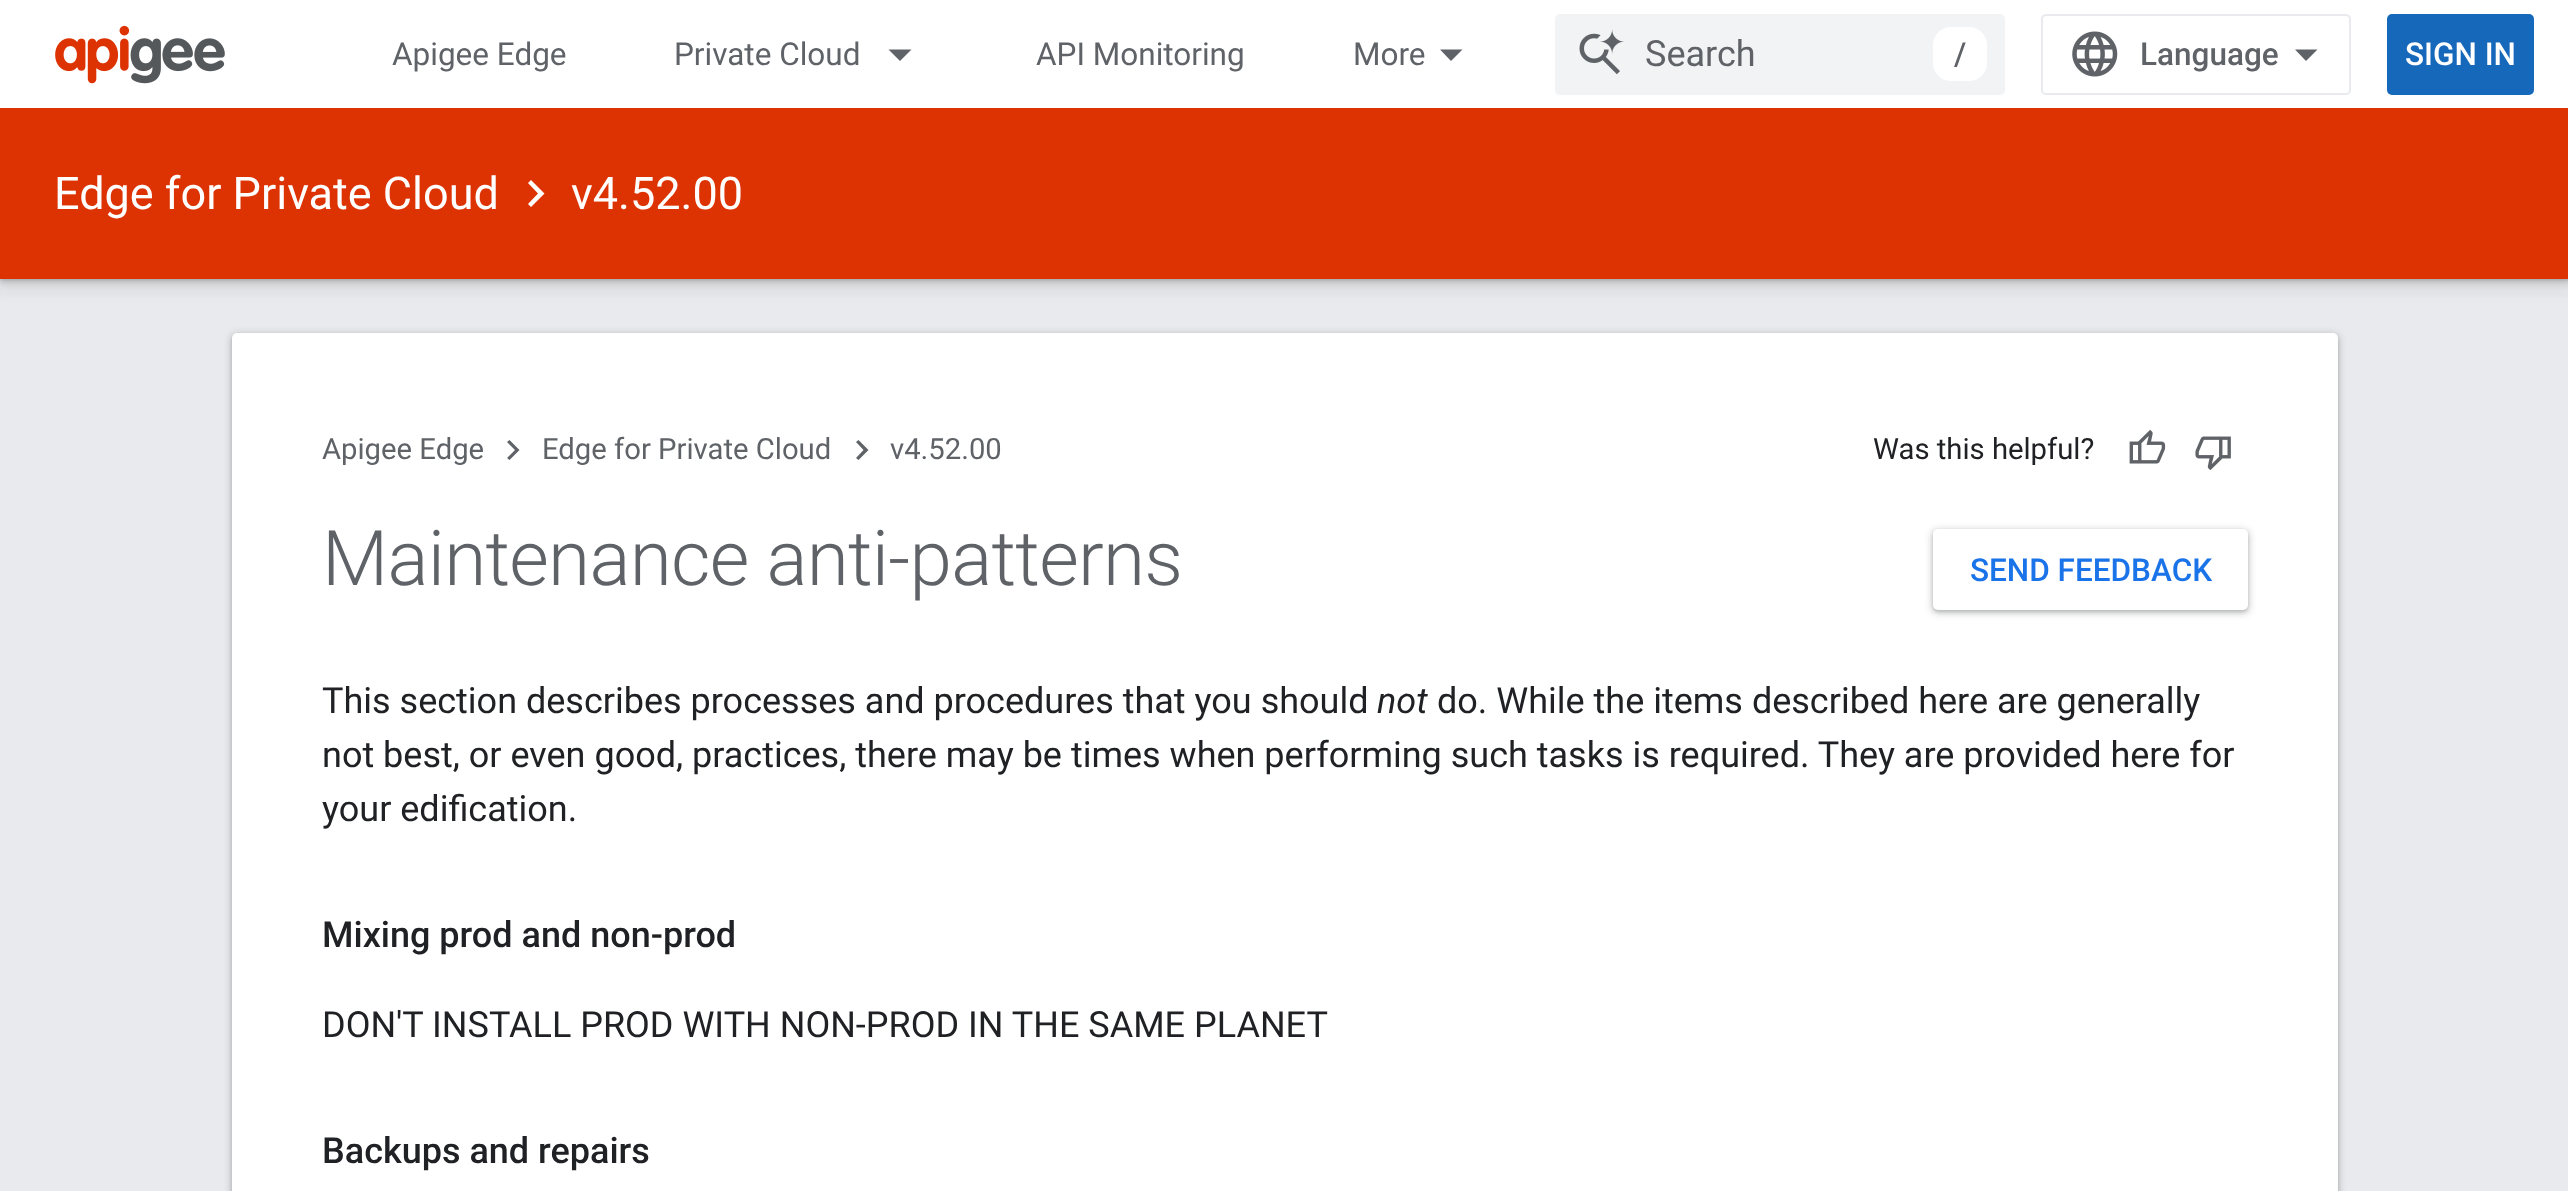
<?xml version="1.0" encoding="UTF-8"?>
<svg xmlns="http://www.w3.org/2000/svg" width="2568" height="1191">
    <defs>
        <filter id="blur1" x="-50%" y="-200%" width="200%" height="500%"><feGaussianBlur stdDeviation="7"/></filter>
        <filter id="blur2" x="-50%" y="-200%" width="200%" height="500%"><feGaussianBlur stdDeviation="2"/></filter>
        <filter id="blur3" x="-50%" y="-200%" width="200%" height="500%"><feGaussianBlur stdDeviation="3.5"/></filter>
    </defs>
    <rect width="100%" height="100%" fill="#E8EAED"/>
    <rect x="-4" y="108" width="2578" height="180" fill="#3C4043" fill-opacity="0.15" filter="url(#blur1)"/>
    <rect x="0" y="110" width="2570" height="171" fill="#3C4043" fill-opacity="0.3" filter="url(#blur2)"/>
    <rect x="0" y="0" width="2568" height="108" fill="#FFFFFF"/>
    <image x="55" y="25" width="170" height="59" href="img_01.png"/>
    <text x="392" y="65" font-family="Roboto" font-size="31.5" fill="#5F6368">Apigee Edge</text>
    <text x="674" y="65" font-family="Roboto" font-size="31.5" fill="#5F6368">Private Cloud</text>
    <path d="M 888.5 49.5 H 911.5 L 900 61 Z" fill="#5F6368"/>
    <text x="1036" y="65" font-family="Roboto" font-size="31.5" fill="#5F6368">API Monitoring</text>
    <text x="1353" y="65" font-family="Roboto" font-size="31.5" fill="#5F6368">More</text>
    <path d="M 1440 49.5 H 1462.5 L 1451 61 Z" fill="#5F6368"/>
    <rect x="1555" y="14" width="450" height="81" rx="5" fill="#F1F3F4"/>
    <image x="1579" y="29" width="46" height="46" href="img_02.png"/>
    <text x="1645" y="66" font-family="Roboto" font-size="36" fill="#5F6368">Search</text>
    <rect x="1933" y="27" width="54" height="54" rx="18" fill="#FFFFFF"/>
    <text x="1954" y="65" font-family="Roboto" font-size="31.5" font-weight="500" fill="#5F6368">/</text>
    <rect x="2042" y="15" width="308" height="79" rx="4" fill="none" stroke="#E8EAED" stroke-width="2"/>
    <image x="2072" y="31" width="46" height="46" href="img_03.png"/>
    <text x="2140" y="65" font-family="Roboto" font-size="31.5" font-weight="500" fill="#5F6368">Language</text>
    <path d="M 2306 61 L 2295 49.5 H 2317.5 Z" fill="#5F6368"/>
    <rect x="2387" y="14" width="147" height="81" rx="5" fill="#1568BA"/>
    <text x="2405" y="65" font-family="Roboto" font-size="31.5" font-weight="500" fill="#FFFFFF">SIGN IN</text>
    <rect x="0" y="108" width="2568" height="171" fill="#DD3303"/>
    <text x="54" y="209" font-family="Roboto" font-size="45" fill="#FFFFFF">Edge for Private Cloud</text>
    <path d="M 531 180 L 544.5 193.5 L 531 207 L 528 204 L 538 193.5 L 528 183 Z" fill="#FFFFFF"/>
    <text x="571" y="209" font-family="Roboto" font-size="45" fill="#FFFFFF">v4.52.00</text>
    <rect x="230" y="333" width="2110" height="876" rx="7" fill="#3C4043" fill-opacity="0.15" filter="url(#blur3)"/>
    <rect x="232" y="335" width="2106" height="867" rx="5" fill="#3C4043" fill-opacity="0.3" filter="url(#blur2)"/>
    <rect x="232" y="333" width="2106" height="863" rx="5" fill="#FFFFFF"/>
    <text x="322" y="459" font-family="Roboto" font-size="29.25" fill="#5F6368">Apigee Edge</text>
    <path d="M 509.5 440 L 519.5 450 L 509.5 460 L 507 458 L 515 450 L 507 442 Z" fill="#5F6368"/>
    <text x="542" y="459" font-family="Roboto" font-size="29.25" fill="#5F6368">Edge for Private Cloud</text>
    <path d="M 858.5 440 L 868.5 450 L 858.5 460 L 856 458 L 863.5 450 L 856 442 Z" fill="#5F6368"/>
    <text x="890" y="459" font-family="Roboto" font-size="29.25" fill="#5F6368">v4.52.00</text>
    <text x="1873" y="459" font-family="Roboto" font-size="29.25" fill="#202124">Was this helpful?</text>
    <image x="2129" y="430" width="37" height="34" href="img_04.png"/>
    <image x="2195" y="436" width="36" height="34" href="img_05.png"/>
    <text x="322" y="585" font-family="Roboto" font-size="76.5" font-weight="300" letter-spacing="-0.75" fill="#5F6368">Maintenance anti-patterns</text>
    <rect x="1931" y="529" width="319" height="85" rx="7" fill="#3C4043" fill-opacity="0.15" filter="url(#blur3)"/>
    <rect x="1933" y="531" width="315" height="81" rx="5" fill="#3C4043" fill-opacity="0.3" filter="url(#blur2)"/>
    <rect x="1933" y="529" width="315" height="81" rx="5" fill="#FFFFFF"/>
    <text x="1970" y="581" font-family="Roboto" font-size="31.5" font-weight="500" fill="#1A73E8">SEND FEEDBACK</text>
    <text x="322" y="713" font-family="Roboto" font-size="36" fill="#202124">This section describes processes and procedures that you should</text>
    <text x="1377" y="713" font-family="Roboto" font-size="36" font-style="italic" fill="#202124">not</text>
    <text x="1437" y="713" font-family="Roboto" font-size="36" fill="#202124">do. While the items described here are generally</text>
    <text font-family="Roboto" font-size="36" fill="#202124">
        <tspan x="322" y="767">not best, or even good, practices, there may be times when performing such tasks is required. They are provided here for</tspan>
        <tspan x="322" y="821">your edification.</tspan>
    </text>
    <text x="322" y="947" font-family="Roboto" font-size="36" font-weight="500" fill="#202124">Mixing prod and non-prod</text>
    <text x="322" y="1037" font-family="Roboto" font-size="36" fill="#202124">DON'T INSTALL PROD WITH NON-PROD IN THE SAME PLANET</text>
    <text x="322" y="1163" font-family="Roboto" font-size="36" font-weight="500" fill="#202124">Backups and repairs</text>
</svg>
